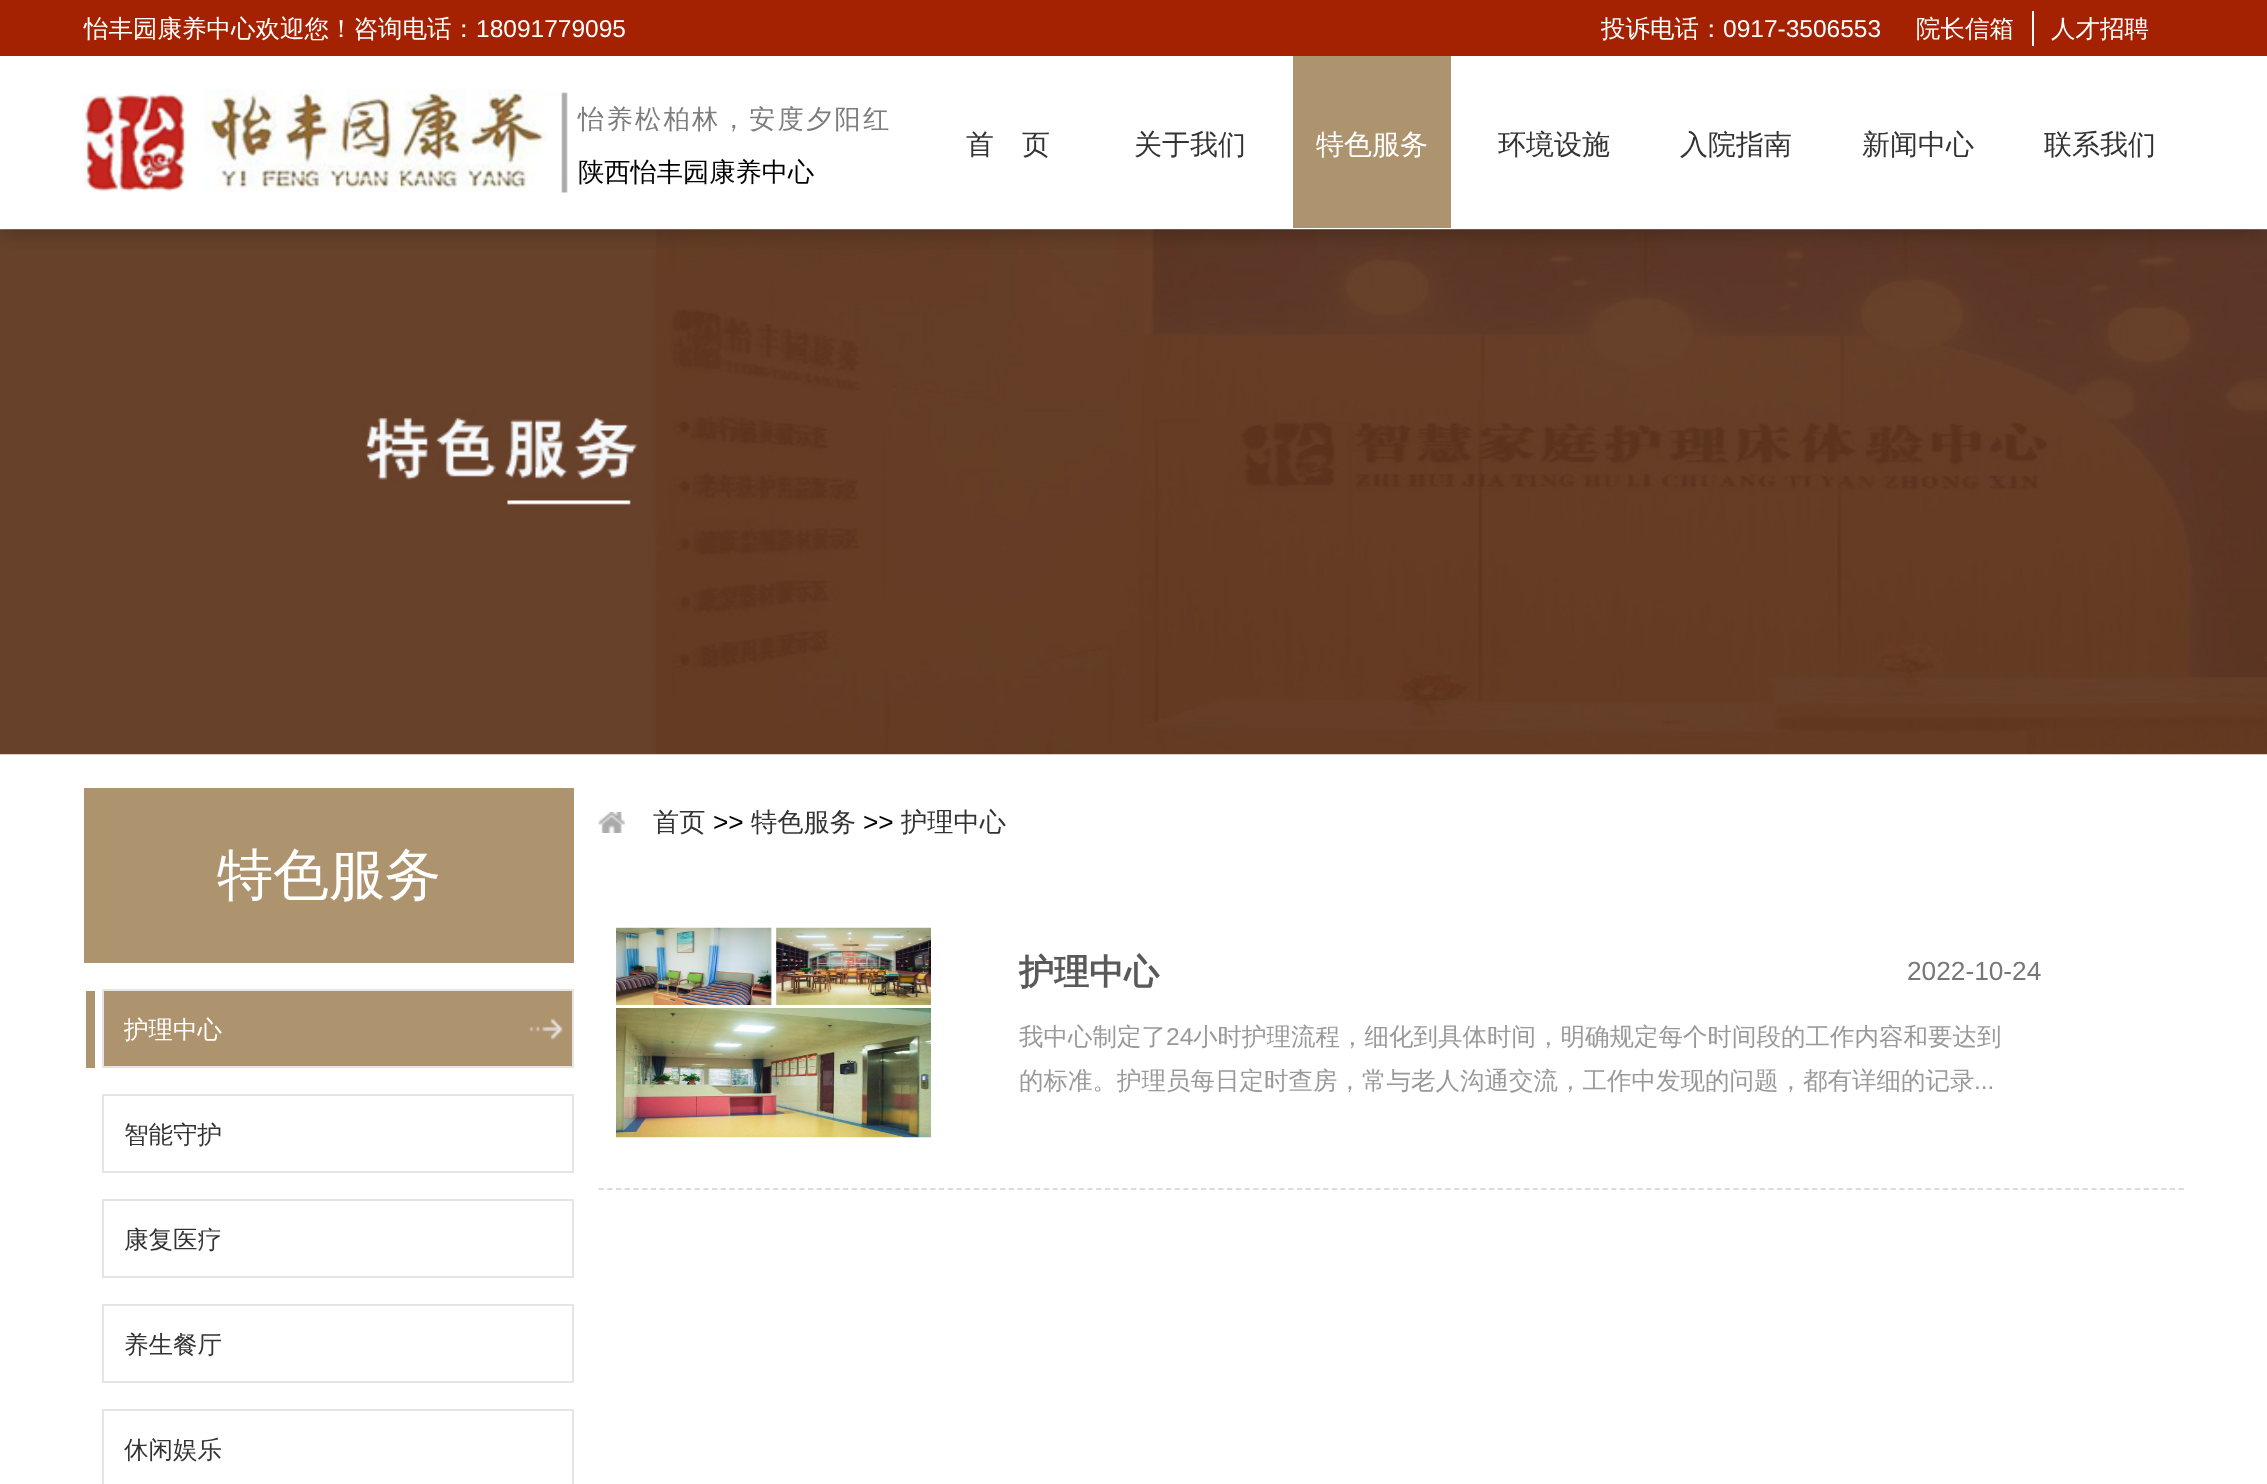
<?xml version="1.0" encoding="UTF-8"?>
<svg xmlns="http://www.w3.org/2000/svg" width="2267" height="1484">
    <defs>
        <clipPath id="clip1"><rect x="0" y="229" width="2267" height="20"/></clipPath>
        <filter id="blur1" x="-50%" y="-200%" width="200%" height="500%"><feGaussianBlur stdDeviation="13"/></filter>
    </defs>
    <rect width="100%" height="100%" fill="#FFFFFF"/>
    <image x="0" y="229" width="2267" height="526" href="img_02.png"/>
    <g clip-path="url(#clip1)">
        <rect x="0" y="0" width="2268" height="229" fill="#000000" fill-opacity="0.3" filter="url(#blur1)"/>
    </g>
    <rect x="0" y="0" width="2267" height="56" fill="#A42202"/>
    <text x="84" y="37" font-family="WenQuanYi Zen Hei" font-size="24.5" font-weight="500" fill="#FFFFFF">怡丰园康养中心欢迎您！咨询电话：</text>
    <text x="476" y="37" font-family="Liberation Sans" font-size="24.5" fill="#FFFFFF">18091779095</text>
    <text x="1601" y="37" font-family="WenQuanYi Zen Hei" font-size="24.5" font-weight="500" fill="#FFFFFF">投诉电话：</text>
    <text x="1723" y="37" font-family="Liberation Sans" font-size="24.5" fill="#FFFFFF">0917-3506553</text>
    <text x="1916" y="37" font-family="WenQuanYi Zen Hei" font-size="24.5" font-weight="500" fill="#FFFFFF">院长信箱</text>
    <rect x="2032" y="11" width="2" height="35" fill="#FFFFFF"/>
    <text x="2051" y="37" font-family="WenQuanYi Zen Hei" font-size="24.5" font-weight="500" fill="#FFFFFF">人才招聘</text>
    <image x="84" y="89" width="484" height="104" href="img_01.png"/>
    <text x="578" y="128" font-family="WenQuanYi Zen Hei" font-size="26.25" font-weight="500" letter-spacing="2.25" fill="#7D7D7D">怡养松柏林，安度夕阳红</text>
    <text x="578" y="181" font-family="WenQuanYi Zen Hei" font-size="26.25" font-weight="500" fill="#000000">陕西怡丰园康养中心</text>
    <text x="966" y="154" font-family="WenQuanYi Zen Hei" font-size="28" font-weight="500" fill="#333333">首　页</text>
    <text x="1134" y="154" font-family="WenQuanYi Zen Hei" font-size="28" font-weight="500" fill="#333333">关于我们</text>
    <rect x="1293" y="56" width="158" height="172" fill="#AE946E"/>
    <text x="1316" y="154" font-family="WenQuanYi Zen Hei" font-size="28" font-weight="500" fill="#FFFFFF">特色服务</text>
    <text x="1498" y="154" font-family="WenQuanYi Zen Hei" font-size="28" font-weight="500" fill="#333333">环境设施</text>
    <text x="1680" y="154" font-family="WenQuanYi Zen Hei" font-size="28" font-weight="500" fill="#333333">入院指南</text>
    <text x="1862" y="154" font-family="WenQuanYi Zen Hei" font-size="28" font-weight="500" fill="#333333">新闻中心</text>
    <text x="2044" y="154" font-family="WenQuanYi Zen Hei" font-size="28" font-weight="500" fill="#333333">联系我们</text>
    <rect x="84" y="788" width="490" height="175" fill="#AE946E"/>
    <text x="217" y="894" font-family="WenQuanYi Zen Hei" font-size="56" font-weight="500" fill="#FFFFFF">特色服务</text>
    <rect x="104" y="991" width="468" height="75" fill="#AE946E"/>
    <image x="529" y="1018" width="34" height="22" href="img_03.png"/>
    <rect x="103" y="990" width="470" height="77" fill="none" stroke="#E5E5E5" stroke-width="2"/>
    <rect x="86" y="991" width="9" height="77" fill="#AE946E"/>
    <text x="124" y="1038" font-family="WenQuanYi Zen Hei" font-size="24.5" font-weight="500" fill="#FFFFFF">护理中心</text>
    <rect x="103" y="1095" width="470" height="77" fill="none" stroke="#E5E5E5" stroke-width="2"/>
    <text x="124" y="1143" font-family="WenQuanYi Zen Hei" font-size="24.5" font-weight="500" fill="#333333">智能守护</text>
    <rect x="103" y="1200" width="470" height="77" fill="none" stroke="#E5E5E5" stroke-width="2"/>
    <text x="124" y="1248" font-family="WenQuanYi Zen Hei" font-size="24.5" font-weight="500" fill="#333333">康复医疗</text>
    <rect x="103" y="1305" width="470" height="77" fill="none" stroke="#E5E5E5" stroke-width="2"/>
    <text x="124" y="1353" font-family="WenQuanYi Zen Hei" font-size="24.5" font-weight="500" fill="#333333">养生餐厅</text>
    <rect x="103" y="1410" width="470" height="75" fill="none" stroke="#E5E5E5" stroke-width="2"/>
    <text x="124" y="1458" font-family="WenQuanYi Zen Hei" font-size="24.5" font-weight="500" fill="#333333">休闲娱乐</text>
    <image x="598" y="812" width="27" height="21" href="img_04.png"/>
    <text x="653" y="831" font-family="WenQuanYi Zen Hei" font-size="26.25" font-weight="500" fill="#333333">首页</text>
    <text x="713" y="831" font-family="Liberation Sans" font-size="26.25" fill="#000000">&gt;&gt;</text>
    <text x="751" y="831" font-family="WenQuanYi Zen Hei" font-size="26.25" font-weight="500" fill="#333333">特色服务</text>
    <text x="863" y="831" font-family="Liberation Sans" font-size="26.25" fill="#000000">&gt;&gt;</text>
    <text x="901" y="831" font-family="WenQuanYi Zen Hei" font-size="26.25" font-weight="500" fill="#333333">护理中心</text>
    <path d="M 598.5 1189 H 2184" fill="none" stroke="#DCDCDC" stroke-width="1.8" stroke-dasharray="5.25 3.48"/>
    <image x="616" y="927" width="315" height="211" href="img_05.png"/>
    <text x="1019" y="984" font-family="WenQuanYi Zen Hei" font-size="35" font-weight="700" fill="#595959">护理中心</text>
    <text x="1907" y="980" font-family="Liberation Sans" font-size="26.25" fill="#777777">2022-10-24</text>
    <text x="1019" y="1045" font-family="WenQuanYi Zen Hei" font-size="24.5" font-weight="500" fill="#999999">我中心制定了</text>
    <text x="1166" y="1045" font-family="Liberation Sans" font-size="24.5" fill="#999999">24</text>
    <text x="1193" y="1045" font-family="WenQuanYi Zen Hei" font-size="24.5" font-weight="500" fill="#999999">小时护理流程，细化到具体时间，明确规定每个时间段的工作内容和要达到</text>
    <text x="1019" y="1089" font-family="WenQuanYi Zen Hei" font-size="24.5" font-weight="500" fill="#999999">的标准。护理员每日定时查房，常与老人沟通交流，工作中发现的问题，都有详细的记录</text>
    <text x="1974" y="1089" font-family="Liberation Sans" font-size="24.5" fill="#999999">...</text>
</svg>
